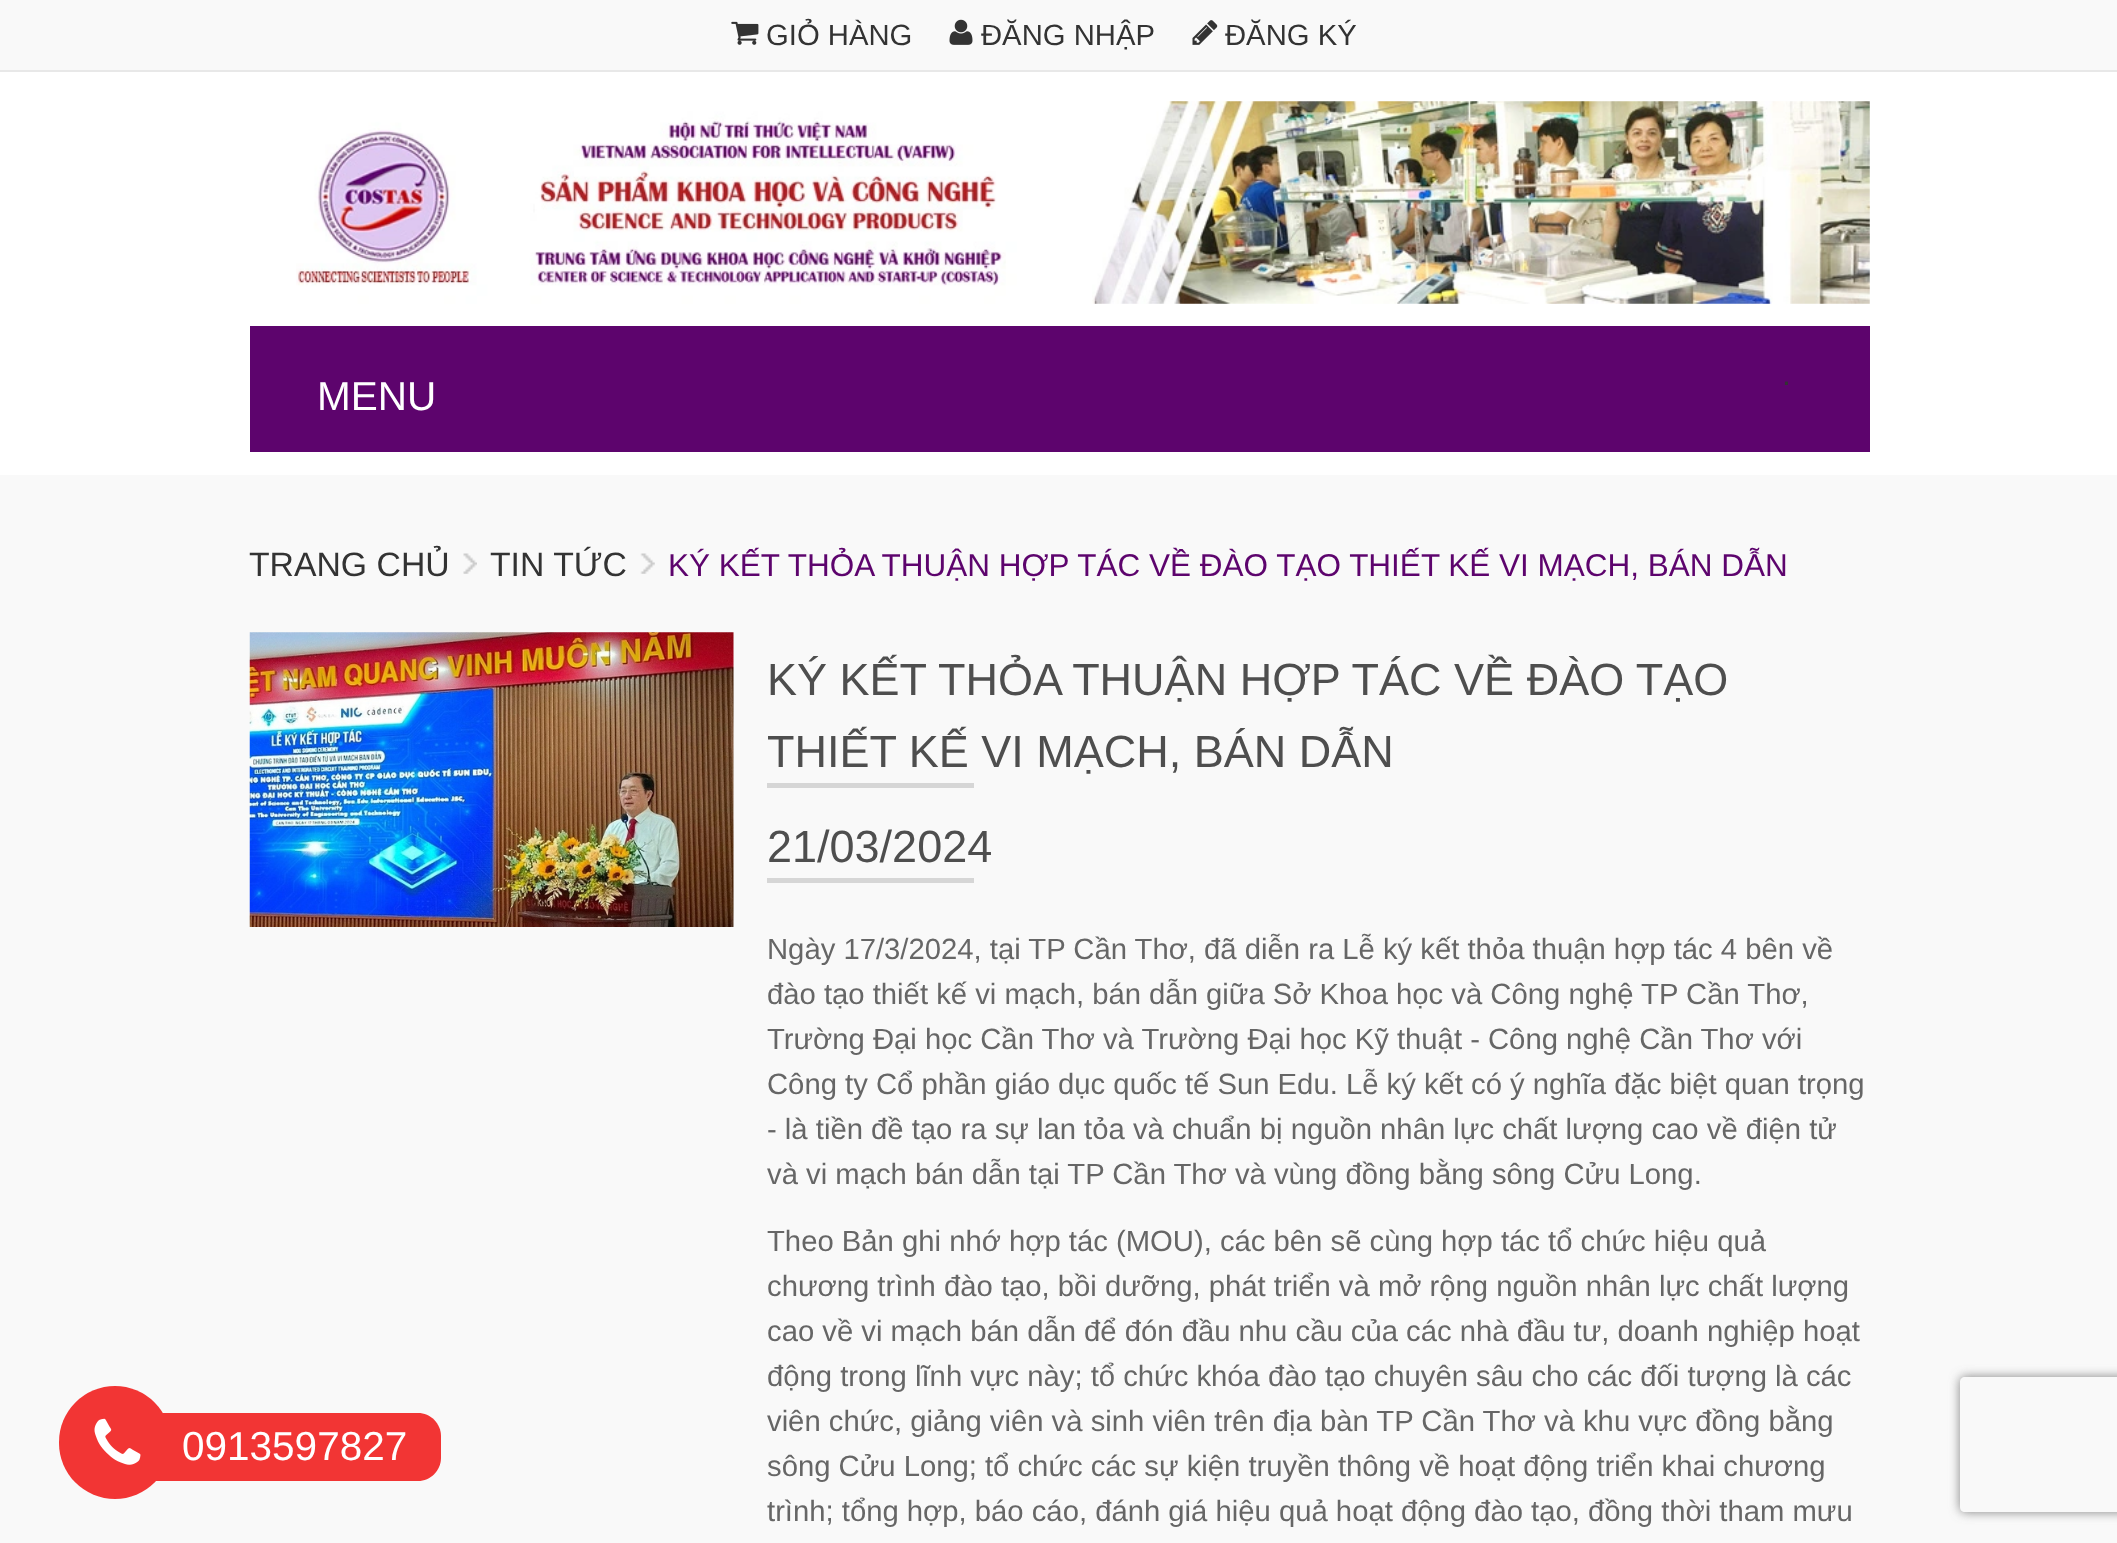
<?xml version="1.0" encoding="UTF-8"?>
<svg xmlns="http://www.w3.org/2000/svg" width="2117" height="1543">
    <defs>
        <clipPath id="clip1"><path d="M 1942 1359 H 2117 V 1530 H 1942 Z M 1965 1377 H 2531 C 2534 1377 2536 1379 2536 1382 V 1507 C 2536 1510 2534 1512 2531 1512 H 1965 C 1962 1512 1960 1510 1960 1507 V 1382 C 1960 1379 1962 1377 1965 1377 Z" clip-rule="evenodd"/></clipPath>
        <filter id="blur1" x="-50%" y="-200%" width="200%" height="500%"><feGaussianBlur stdDeviation="5.5"/></filter>
    </defs>
    <rect width="100%" height="100%" fill="#F9F9F9"/>
    <rect x="0" y="70" width="2117" height="2" fill="#E8E8E8"/>
    <image x="731" y="21" width="28" height="24" href="img_01.png"/>
    <text x="766" y="45" font-family="Liberation Sans" font-size="29.25" fill="#333333">GIỎ HÀNG</text>
    <image x="949" y="19" width="24" height="26" href="img_02.png"/>
    <text x="981" y="45" font-family="Liberation Sans" font-size="29.25" fill="#333333">ĐĂNG NHẬP</text>
    <image x="1192" y="20" width="26" height="25" href="img_03.png"/>
    <text x="1225" y="45" font-family="Liberation Sans" font-size="29.25" fill="#333333">ĐĂNG KÝ</text>
    <rect x="0" y="72" width="2117" height="403" fill="#FFFFFF"/>
    <image x="296" y="101" width="1574" height="203" href="img_04.png"/>
    <rect x="250" y="326" width="1620" height="126" fill="#5D046D"/>
    <text x="317" y="410" font-family="Liberation Sans" font-size="40.5" fill="#FFFFFF">MENU</text>
    <text x="1782" y="385" font-family="Liberation Sans" font-size="31.5" fill="#333333">.</text>
    <text x="249" y="576" font-family="Liberation Sans" font-size="33.75" fill="#333333">TRANG CHỦ</text>
    <image x="463" y="553" width="14" height="21" href="img_05.png"/>
    <text x="490" y="576" font-family="Liberation Sans" font-size="33.75" fill="#333333">TIN TỨC</text>
    <image x="640" y="553" width="15" height="21" href="img_06.png"/>
    <text x="668" y="576" font-family="Liberation Sans" font-size="31.5" fill="#5D046D">KÝ KẾT THỎA THUẬN HỢP TÁC VỀ ĐÀO TẠO THIẾT KẾ VI MẠCH, BÁN DẪN</text>
    <image x="249" y="632" width="485" height="295" href="img_07.png"/>
    <text font-family="Liberation Sans" font-size="45" fill="#4E4E4E">
        <tspan x="767" y="695">KÝ KẾT THỎA THUẬN HỢP TÁC VỀ ĐÀO TẠO</tspan>
        <tspan x="767" y="767">THIẾT KẾ VI MẠCH, BÁN DẪN</tspan>
    </text>
    <rect x="767" y="783" width="207" height="5" fill="#D6D6D6"/>
    <text x="767" y="862" font-family="Liberation Sans" font-size="45" fill="#4E4E4E">21/03/2024</text>
    <rect x="767" y="878" width="207" height="5" fill="#D6D6D6"/>
    <text font-family="Liberation Sans" font-size="29.25" fill="#666666">
        <tspan x="767" y="959">Ngày 17/3/2024, tại TP Cần Thơ, đã diễn ra Lễ ký kết thỏa thuận hợp tác 4 bên về</tspan>
        <tspan x="767" y="1004">đào tạo thiết kế vi mạch, bán dẫn giữa Sở Khoa học và Công nghệ TP Cần Thơ,</tspan>
        <tspan x="767" y="1049">Trường Đại học Cần Thơ và Trường Đại học Kỹ thuật - Công nghệ Cần Thơ với</tspan>
        <tspan x="767" y="1094">Công ty Cổ phần giáo dục quốc tế Sun Edu. Lễ ký kết có ý nghĩa đặc biệt quan trọng</tspan>
        <tspan x="767" y="1139">- là tiền đề tạo ra sự lan tỏa và chuẩn bị nguồn nhân lực chất lượng cao về điện tử</tspan>
        <tspan x="767" y="1184">và vi mạch bán dẫn tại TP Cần Thơ và vùng đồng bằng sông Cửu Long.</tspan>
    </text>
    <text font-family="Liberation Sans" font-size="29.25" fill="#666666">
        <tspan x="767" y="1251">Theo Bản ghi nhớ hợp tác (MOU), các bên sẽ cùng hợp tác tổ chức hiệu quả</tspan>
        <tspan x="767" y="1296">chương trình đào tạo, bồi dưỡng, phát triển và mở rộng nguồn nhân lực chất lượng</tspan>
        <tspan x="767" y="1341">cao về vi mạch bán dẫn để đón đầu nhu cầu của các nhà đầu tư, doanh nghiệp hoạt</tspan>
        <tspan x="767" y="1386">động trong lĩnh vực này; tổ chức khóa đào tạo chuyên sâu cho các đối tượng là các</tspan>
        <tspan x="767" y="1431">viên chức, giảng viên và sinh viên trên địa bàn TP Cần Thơ và khu vực đồng bằng</tspan>
        <tspan x="767" y="1476">sông Cửu Long; tổ chức các sự kiện truyền thông về hoạt động triển khai chương</tspan>
        <tspan x="767" y="1521">trình; tổng hợp, báo cáo, đánh giá hiệu quả hoạt động đào tạo, đồng thời tham mưu</tspan>
    </text>
    <g clip-path="url(#clip1)">
        <rect x="1960" y="1377" width="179" height="135" rx="5" fill="#808080" filter="url(#blur1)"/>
    </g>
    <rect x="59" y="1386" width="112" height="113" rx="56" fill="#F23534"/>
    <image x="94" y="1418" width="47" height="47" href="img_08.png"/>
    <path d="M 149 1413 H 418 C 430.5 1413 441 1423.5 441 1436 V 1458 C 441 1470.5 430.5 1481 418 1481 H 149 Z" fill="#F23534"/>
    <text x="182" y="1460" font-family="Liberation Sans" font-size="40.5" fill="#FFFFFF">0913597827</text>
</svg>
